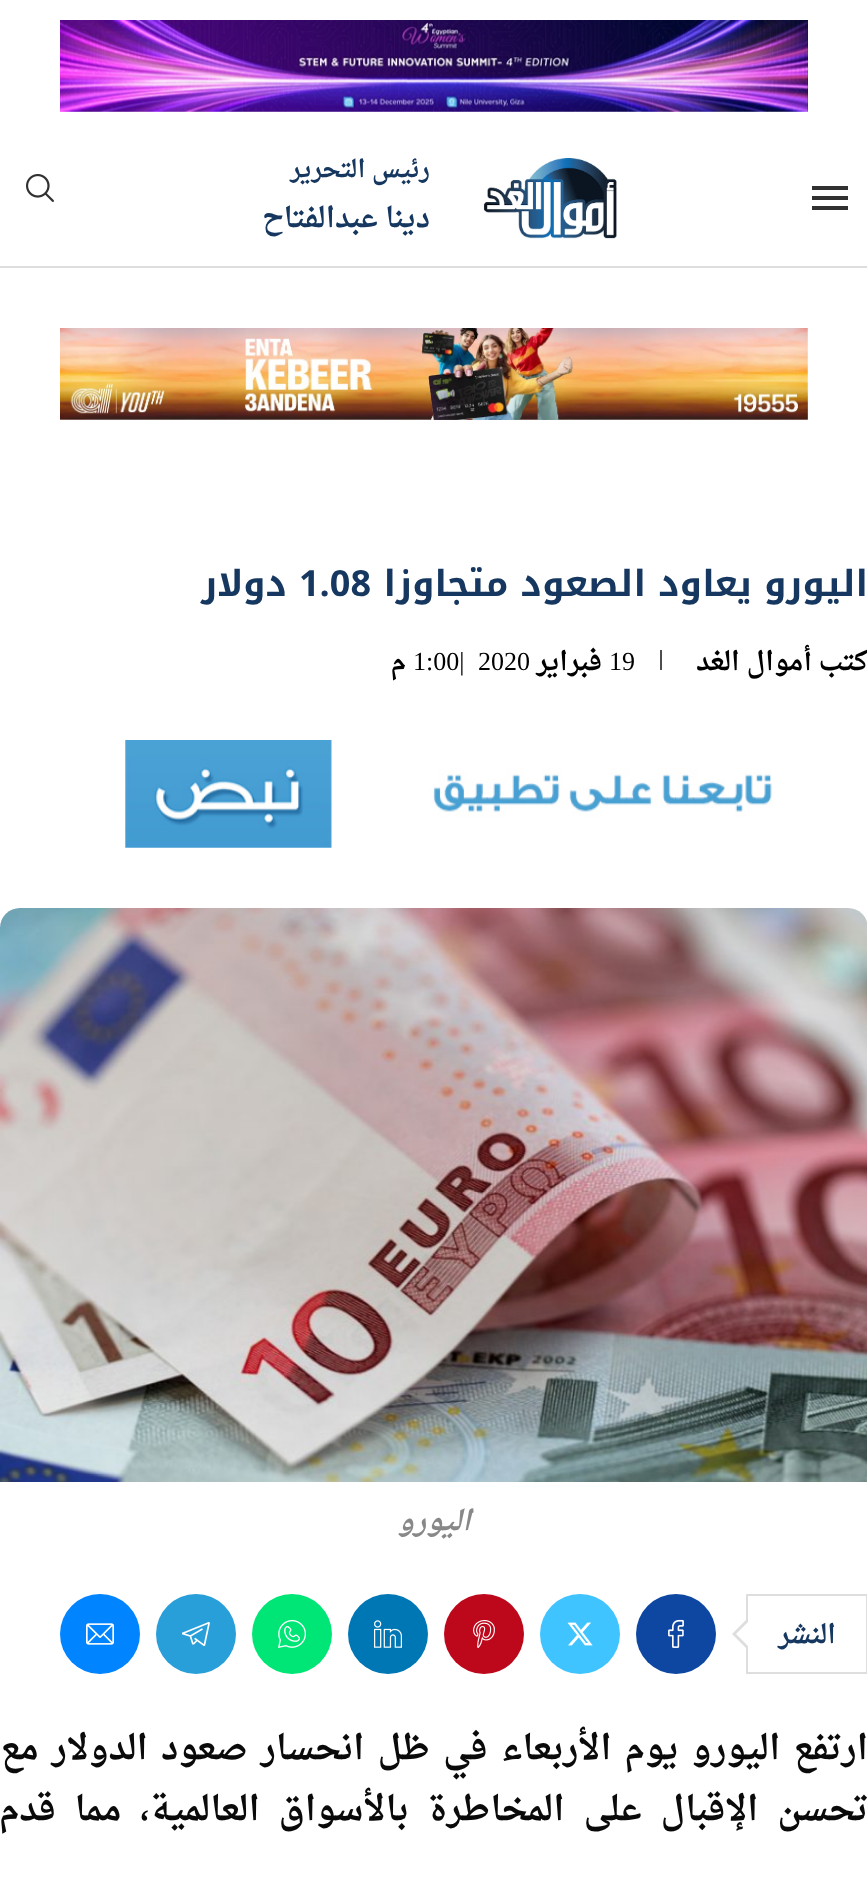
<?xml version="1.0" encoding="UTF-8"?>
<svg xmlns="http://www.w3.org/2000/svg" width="867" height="1878">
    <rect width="100%" height="100%" fill="#FFFFFF"/>
    <image x="60" y="20" width="748" height="92" href="img_01.png"/>
    <rect x="0" y="266" width="867" height="2" fill="#DEDEDE"/>
    <rect x="812" y="186" width="36" height="4" fill="#313131"/>
    <rect x="812" y="206" width="36" height="4" fill="#313131"/>
    <rect x="812" y="196" width="36" height="4" fill="#313131"/>
    <image x="483" y="158" width="134" height="81" href="img_02.png"/>
    <text x="430" y="177" font-family="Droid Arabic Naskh" font-size="24" font-weight="700" direction="rtl" fill="#163860">رئيس التحرير</text>
    <text x="430" y="227" font-family="Droid Arabic Naskh" font-size="28" font-weight="700" direction="rtl" fill="#163860">دينا عبدالفتاح</text>
    <image x="26" y="174" width="28" height="28" href="img_03.png"/>
    <image x="60" y="328" width="748" height="92" href="img_04.png"/>
    <text x="868" y="596" font-family="Noto Kufi Arabic" font-size="36" font-weight="700" direction="rtl" fill="#163860">اليورو يعاود الصعود متجاوزا</text>
    <text x="299" y="596" font-family="Noto Kufi Arabic" font-size="36" font-weight="700" fill="#163860">1.08</text>
    <text x="287" y="596" font-family="Noto Kufi Arabic" font-size="36" font-weight="700" direction="rtl" fill="#163860">دولار</text>
    <text x="868" y="670" font-family="Droid Arabic Naskh" font-size="26" font-weight="700" direction="rtl" fill="#000000">كتب</text>
    <text x="812" y="670" font-family="Droid Arabic Naskh" font-size="26" font-weight="700" direction="rtl" fill="#000000">أموال الغد</text>
    <rect x="660" y="650" width="2" height="20" fill="#4D4D4D"/>
    <text x="609" y="670" font-family="Liberation Serif" font-size="26" fill="#000000">19</text>
    <text x="602" y="670" font-family="Droid Arabic Naskh" font-size="26" font-weight="700" direction="rtl" fill="#000000">فبراير</text>
    <text x="478" y="670" font-family="Liberation Serif" font-size="26" fill="#000000">2020</text>
    <text x="413" y="670" font-family="Liberation Serif" font-size="26" fill="#000000">1:00|</text>
    <text x="406" y="670" font-family="Droid Arabic Naskh" font-size="26" font-weight="700" direction="rtl" fill="#000000">م</text>
    <image x="125" y="740" width="647" height="108" href="img_05.png"/>
    <image x="0" y="908" width="867" height="574" href="img_06.png"/>
    <text x="471" y="1530" font-family="Droid Arabic Naskh" font-size="28" font-weight="700" font-style="italic" direction="rtl" fill="#888888">اليورو</text>
    <rect x="747" y="1595" width="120" height="78" fill="none" stroke="#DEDEDE" stroke-width="2"/>
    <path d="M 748 1618 V 1650 L 732 1634 Z" fill="#DEDEDE"/>
    <text x="836" y="1643" font-family="Droid Arabic Naskh" font-size="26" font-weight="700" direction="rtl" fill="#163860">النشر</text>
    <path d="M 748 1622 V 1646 L 736 1634 Z" fill="#FFFFFF"/>
    <circle cx="676" cy="1634" r="40" fill="#0D47A1"/>
    <image x="668" y="1619" width="16" height="29" href="img_07.png"/>
    <circle cx="580" cy="1634" r="40" fill="#40C4FF"/>
    <image x="567" y="1622" width="26" height="24" href="img_08.png"/>
    <circle cx="484" cy="1634" r="40" fill="#BD081C"/>
    <image x="473" y="1620" width="22" height="28" href="img_09.png"/>
    <circle cx="388" cy="1634" r="40" fill="#0077B5"/>
    <image x="374" y="1620" width="28" height="28" href="img_10.png"/>
    <circle cx="292" cy="1634" r="40" fill="#00E676"/>
    <image x="278" y="1620" width="28" height="28" href="img_11.png"/>
    <circle cx="196" cy="1634" r="40" fill="#289FD9"/>
    <image x="182" y="1621" width="28" height="26" href="img_12.png"/>
    <circle cx="100" cy="1634" r="40" fill="#0084FF"/>
    <image x="86" y="1623" width="28" height="22" href="img_13.png"/>
    <text font-family="Droid Arabic Naskh" font-size="34" font-weight="700" direction="rtl" fill="#0A0A0A">
        <tspan x="868" y="1759" word-spacing="4.25">ارتفع اليورو يوم الأربعاء في ظل انحسار صعود الدولار مع</tspan>
        <tspan x="868" y="1820" word-spacing="10">تحسن الإقبال على المخاطرة بالأسواق العالمية، مما قدم</tspan>
    </text>
</svg>
